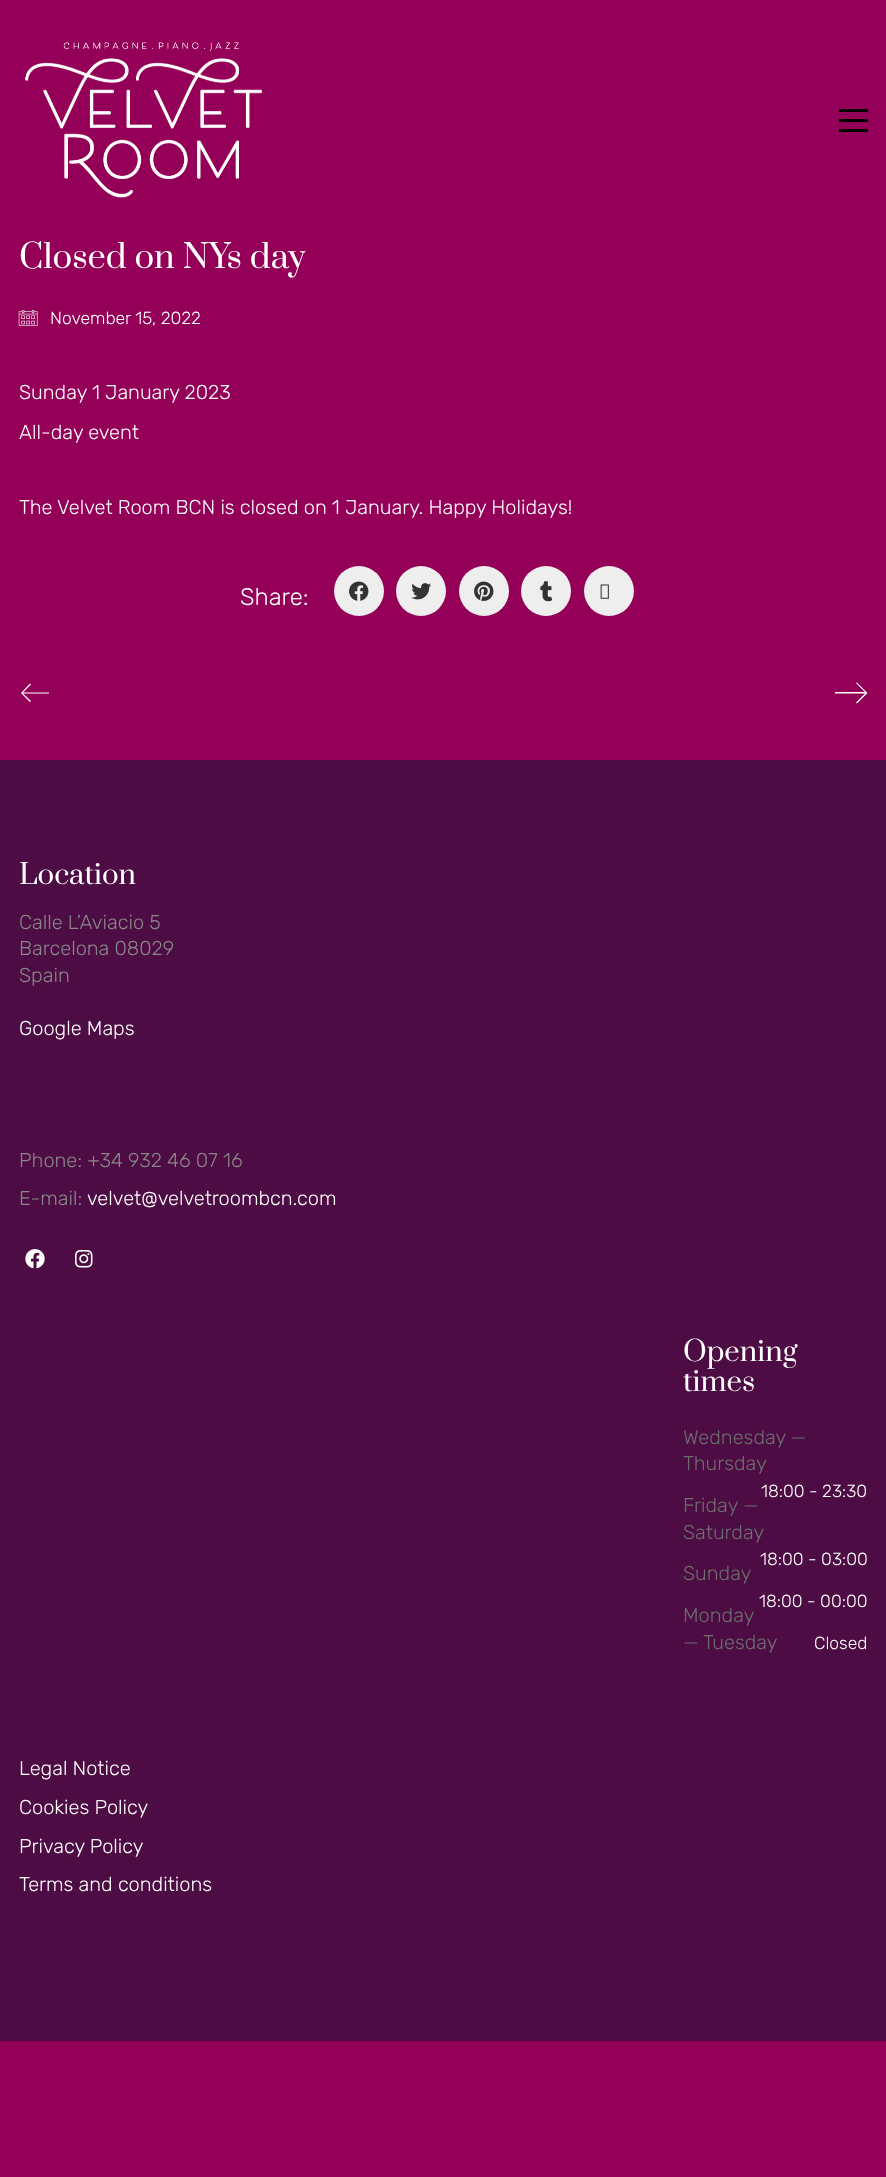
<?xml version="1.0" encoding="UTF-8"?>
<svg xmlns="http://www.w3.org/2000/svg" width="886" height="2177">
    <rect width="100%" height="100%" fill="#940057"/>
    <image x="25" y="42" width="238" height="156" href="img_01.png"/>
    <rect x="839" y="109" width="29" height="3" fill="#000000"/>
    <rect x="839" y="119" width="29" height="3" fill="#000000"/>
    <rect x="839" y="129" width="29" height="3" fill="#000000"/>
    <text x="19" y="268" font-family="Prata" font-size="32.5" fill="#FFFFFF">Closed on NYs day</text>
    <image x="18" y="310" width="20" height="17" href="img_02.png"/>
    <text x="50" y="324" font-family="Rubik" font-size="17.5" font-weight="300" fill="#FFFFFF">November 15, 2022</text>
    <text x="19" y="399" font-family="Rubik" font-size="20" font-weight="300" fill="#FFFFFF">Sunday 1 January 2023</text>
    <text x="19" y="439" font-family="Rubik" font-size="20" font-weight="300" fill="#FFFFFF">All-day event</text>
    <text x="19" y="514" font-family="Rubik" font-size="20" font-weight="300" fill="#FFFFFF">The Velvet Room BCN is closed on 1 January. Happy Holidays!</text>
    <text x="240" y="605" font-family="Rubik" font-size="24" font-weight="300" fill="#FFFFFF">Share:</text>
    <circle cx="359" cy="591" r="25" fill="#EEEEEE"/>
    <image x="349" y="581" width="20" height="20" href="img_03.png"/>
    <circle cx="421" cy="591" r="25" fill="#EEEEEE"/>
    <image x="411" y="583" width="21" height="17" href="img_04.png"/>
    <circle cx="484" cy="591" r="25" fill="#EEEEEE"/>
    <image x="474" y="581" width="20" height="20" href="img_05.png"/>
    <circle cx="546" cy="591" r="25" fill="#EEEEEE"/>
    <image x="540" y="581" width="13" height="21" href="img_06.png"/>
    <circle cx="609" cy="591" r="25" fill="#EEEEEE"/>
    <image x="600" y="584" width="9" height="15" href="img_07.png"/>
    <path d="M 49 692.5 H 23 L 31 684.5 L 30 683.5 L 21 693 L 30 702 L 31 701 L 23 693.5 H 49 Z" fill="#FFFFFF"/>
    <path d="M 857 682.5 L 856 683 L 865 692 H 835 V 693.5 H 865 L 856 702.5 L 857 703.5 L 867.5 693 Z" fill="#FFFFFF"/>
    <rect x="0" y="760" width="886" height="1281" fill="#4D0C44"/>
    <text x="19" y="884" font-family="Prata" font-size="27.5" fill="#FFFFFF">Location</text>
    <text font-family="Rubik" font-size="20" font-weight="300" fill="#888888">
        <tspan x="19" y="929">Calle L’Aviacio 5</tspan>
        <tspan x="19" y="955">Barcelona 08029</tspan>
        <tspan x="19" y="982">Spain</tspan>
    </text>
    <text x="19" y="1035" font-family="Rubik" font-size="20" font-weight="300" fill="#FFFFFF">Google Maps</text>
    <text font-family="Rubik" font-size="20" font-weight="300" fill="#888888">
        <tspan x="19" y="1167">Phone: +34 932 46 07 16</tspan>
        <tspan x="19" y="1205">E-mail:</tspan>
    </text>
    <text x="87" y="1205" font-family="Rubik" font-size="20" font-weight="300" fill="#FFFFFF">velvet@velvetroombcn.com</text>
    <image x="25" y="1249" width="20" height="20" href="img_08.png"/>
    <image x="75" y="1250" width="18" height="18" href="img_09.png"/>
    <text font-family="Prata" font-size="27.5" fill="#FFFFFF">
        <tspan x="683" y="1361">Opening</tspan>
        <tspan x="683" y="1391">times</tspan>
    </text>
    <text font-family="Rubik" font-size="20" font-weight="300" fill="#6D6D6D">
        <tspan x="683" y="1444">Wednesday —</tspan>
        <tspan x="683" y="1470">Thursday</tspan>
    </text>
    <text x="761" y="1497" font-family="Rubik" font-size="17.5" font-weight="300" fill="#FFFFFF">18:00 - 23:30</text>
    <text font-family="Rubik" font-size="20" font-weight="300" fill="#6D6D6D">
        <tspan x="683" y="1512">Friday —</tspan>
        <tspan x="683" y="1539">Saturday</tspan>
    </text>
    <text x="760" y="1565" font-family="Rubik" font-size="17.5" font-weight="300" fill="#FFFFFF">18:00 - 03:00</text>
    <text x="683" y="1580" font-family="Rubik" font-size="20" font-weight="300" fill="#6D6D6D">Sunday</text>
    <text x="759" y="1607" font-family="Rubik" font-size="17.5" font-weight="300" fill="#FFFFFF">18:00 - 00:00</text>
    <text font-family="Rubik" font-size="20" font-weight="300" fill="#6D6D6D">
        <tspan x="683" y="1622">Monday</tspan>
        <tspan x="683" y="1649">— Tuesday</tspan>
    </text>
    <text x="814" y="1649" font-family="Rubik" font-size="17.5" font-weight="300" fill="#FFFFFF">Closed</text>
    <text font-family="Rubik" font-size="20" font-weight="300" fill="#FFFFFF">
        <tspan x="19" y="1775">Legal Notice</tspan>
        <tspan x="19" y="1814">Cookies Policy</tspan>
        <tspan x="19" y="1853">Privacy Policy</tspan>
        <tspan x="19" y="1891">Terms and conditions</tspan>
    </text>
</svg>
